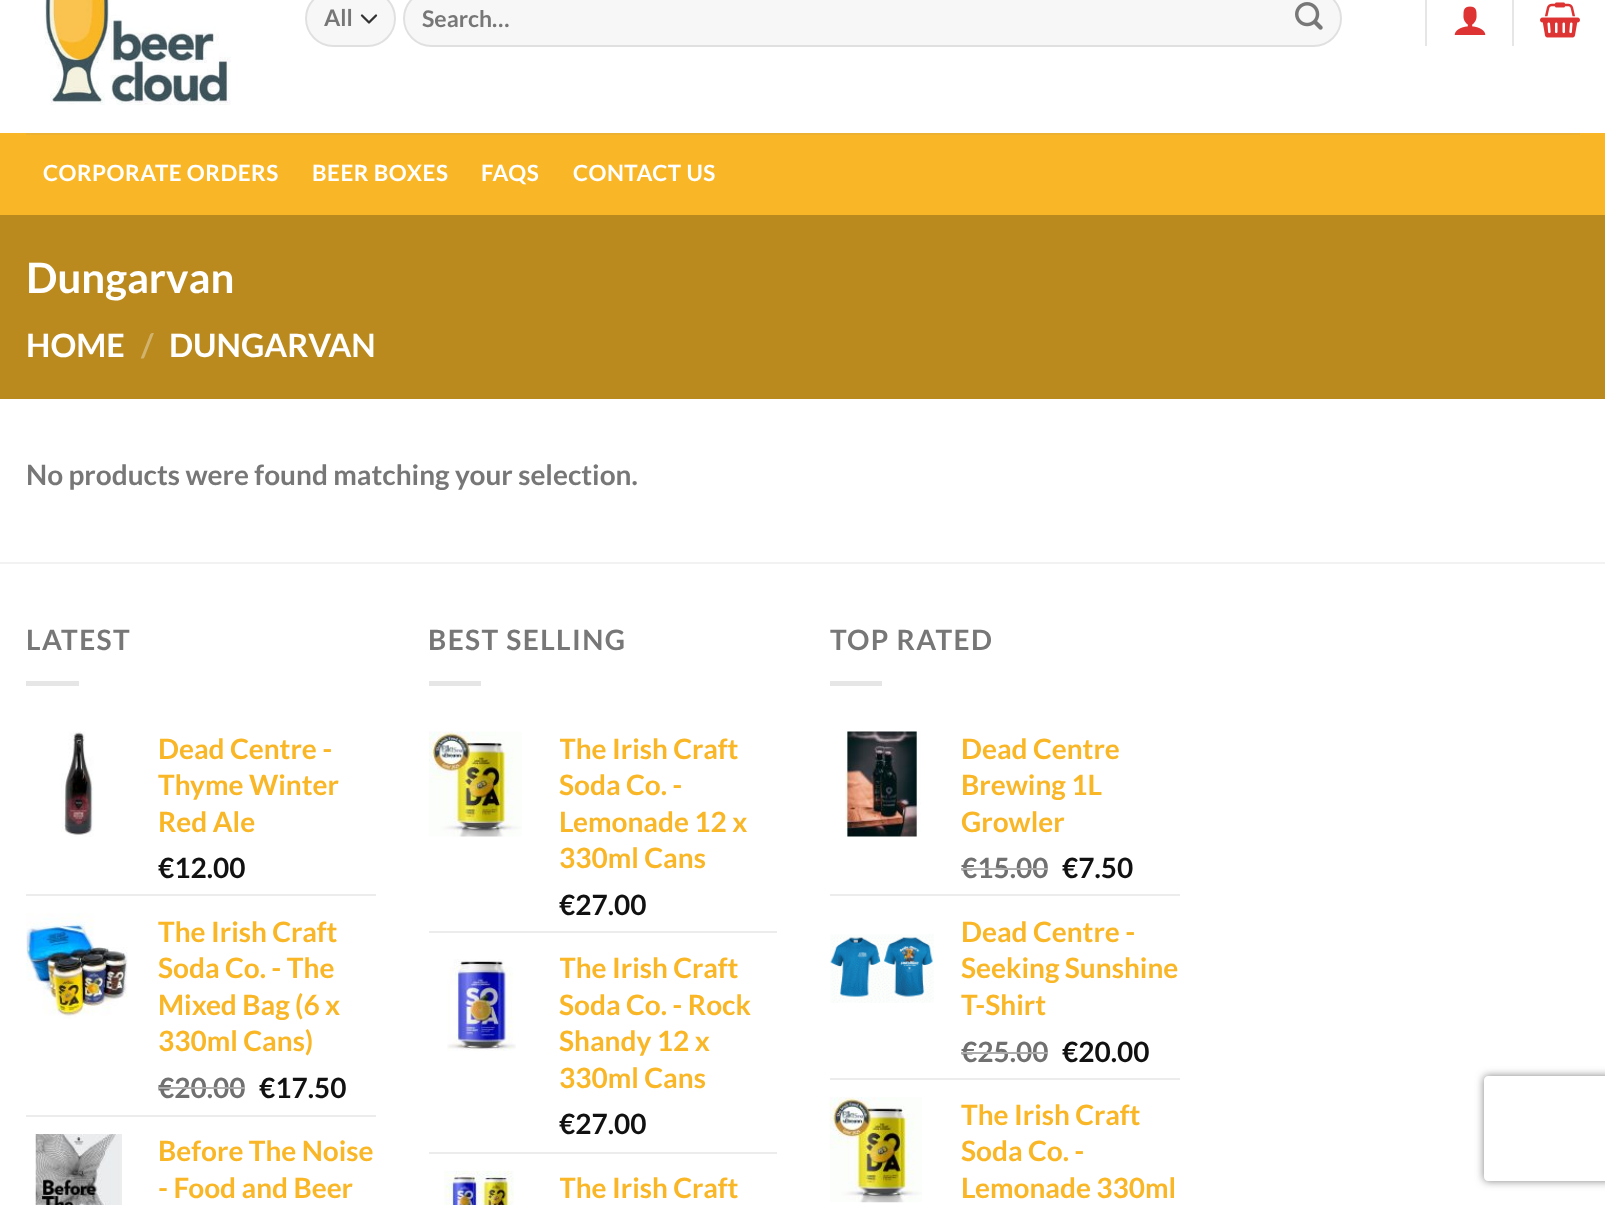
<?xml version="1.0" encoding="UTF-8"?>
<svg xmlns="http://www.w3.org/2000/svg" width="1605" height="1205">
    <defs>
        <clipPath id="clip1"><rect x="158" y="732" width="218" height="108"/></clipPath>
        <clipPath id="clip2"><rect x="158" y="914" width="218" height="145"/></clipPath>
        <clipPath id="clip3"><rect x="560" y="732" width="217" height="145"/></clipPath>
        <clipPath id="clip4"><rect x="560" y="950" width="217" height="146"/></clipPath>
        <clipPath id="clip5"><rect x="560" y="1171" width="217" height="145"/></clipPath>
        <clipPath id="clip6"><path d="M 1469 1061 H 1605 V 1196 H 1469 Z M 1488 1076 H 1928 C 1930 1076 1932 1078 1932 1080 V 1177 C 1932 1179 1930 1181 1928 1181 H 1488 C 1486 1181 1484 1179 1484 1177 V 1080 C 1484 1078 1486 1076 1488 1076 Z" clip-rule="evenodd"/></clipPath>
        <filter id="blur1" x="-50%" y="-200%" width="200%" height="500%"><feGaussianBlur stdDeviation="4.5"/></filter>
    </defs>
    <rect width="100%" height="100%" fill="#FFFFFF"/>
    <image x="44" y="0" width="187" height="105" href="img_01.png"/>
    <rect x="305" y="-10" width="91" height="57" rx="28.5" fill="#F7F7F7"/>
    <path d="M 362 15.5 L 369 22.5 L 376 15.5" fill="none" stroke="#333333" stroke-width="2.3" stroke-linecap="round" stroke-linejoin="round"/>
    <rect x="306" y="-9" width="89" height="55" rx="27.5" fill="none" stroke="#000000" stroke-opacity="0.09" stroke-width="2"/>
    <text x="324" y="26" font-family="Lato" font-size="23" font-weight="700" fill="#777777">All</text>
    <rect x="403" y="-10" width="939" height="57" rx="28.5" fill="#F7F7F7"/>
    <rect x="404" y="-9" width="937" height="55" rx="27.5" fill="none" stroke="#000000" stroke-opacity="0.09" stroke-width="2"/>
    <text x="422" y="27" font-family="Lato" font-size="23" font-weight="700" fill="#777777">Search…</text>
    <image x="1295" y="2" width="28" height="28" href="img_02.png"/>
    <rect x="1425" y="0" width="2" height="46" fill="#E6E6E6"/>
    <image x="1454" y="6" width="32" height="29" href="img_03.png"/>
    <rect x="1512" y="0" width="2" height="46" fill="#E6E6E6"/>
    <image x="1540" y="2" width="40" height="36" href="img_04.png"/>
    <rect x="0" y="133" width="1605" height="82" fill="#F9B728"/>
    <rect x="26" y="133" width="1554" height="2" fill="#ECB130"/>
    <text x="43" y="181" font-family="Lato" font-size="22.4" font-weight="700" letter-spacing="0.5" fill="#FFFFFF">CORPORATE ORDERS</text>
    <text x="312" y="181" font-family="Lato" font-size="22.4" font-weight="700" letter-spacing="0.5" fill="#FFFFFF">BEER BOXES</text>
    <text x="481" y="181" font-family="Lato" font-size="22.4" font-weight="700" letter-spacing="0.5" fill="#FFFFFF">FAQS</text>
    <text x="573" y="181" font-family="Lato" font-size="22.4" font-weight="700" letter-spacing="0.5" fill="#FFFFFF">CONTACT US</text>
    <rect x="0" y="215" width="1605" height="184" fill="#BA8A1E"/>
    <text x="26" y="293" font-family="Lato" font-size="42" font-weight="700" fill="#FFFFFF">Dungarvan</text>
    <text x="26" y="357" font-family="Lato" font-size="32.25" font-weight="700" fill="#FFFFFF">HOME</text>
    <text x="141" y="357" font-family="Lato" font-size="32.25" font-weight="700" fill="#D2B36D">/</text>
    <text x="169" y="357" font-family="Lato" font-size="32.25" font-weight="700" fill="#FFFFFF">DUNGARVAN</text>
    <text x="26" y="485" font-family="Lato" font-size="28" font-weight="700" fill="#777777">No products were found matching your selection.</text>
    <rect x="0" y="562" width="1605" height="2" fill="#F2F2F2"/>
    <text x="26" y="650" font-family="Lato" font-size="28" font-weight="700" letter-spacing="1.4" fill="#777777">LATEST</text>
    <rect x="26" y="681" width="53" height="5" fill="#E6E6E6"/>
    <image x="61" y="731" width="33" height="106" href="img_05.png"/>
    <text x="158" y="759" font-family="Lato" font-size="28" font-weight="700" fill="#F9B728">Dead Centre -</text>
    <g clip-path="url(#clip1)">
        <text x="158" y="795" font-family="Lato" font-size="28" font-weight="700" fill="#F9B728">Thyme Winter</text>
    </g>
    <text x="158" y="832" font-family="Lato" font-size="28" font-weight="700" fill="#F9B728">Red Ale</text>
    <text x="158" y="878" font-family="Lato" font-size="28" font-weight="700" fill="#111111">€12.00</text>
    <rect x="26" y="894" width="350" height="2" fill="#ECECEC"/>
    <image x="26" y="913" width="102" height="106" href="img_06.png"/>
    <g clip-path="url(#clip2)">
        <text x="158" y="942" font-family="Lato" font-size="28" font-weight="700" fill="#F9B728">The Irish Craft</text>
    </g>
    <text font-family="Lato" font-size="28" font-weight="700" fill="#F9B728">
        <tspan x="158" y="978">Soda Co. - The</tspan>
        <tspan x="158" y="1015">Mixed Bag (6 x</tspan>
        <tspan x="158" y="1051">330ml Cans)</tspan>
    </text>
    <text x="158" y="1098" font-family="Lato" font-size="28" font-weight="700" fill="#707070">€20.00</text>
    <rect x="158" y="1087" width="87" height="2" fill="#ADADAD"/>
    <text x="259" y="1098" font-family="Lato" font-size="28" font-weight="700" fill="#111111">€17.50</text>
    <rect x="26" y="1115" width="350" height="2" fill="#ECECEC"/>
    <image x="35" y="1134" width="87" height="71" href="img_07.png"/>
    <text font-family="Lato" font-size="28" font-weight="700" fill="#F9B728">
        <tspan x="158" y="1161">Before The Noise</tspan>
        <tspan x="158" y="1198">- Food and Beer</tspan>
    </text>
    <text x="428" y="650" font-family="Lato" font-size="28" font-weight="700" letter-spacing="1.4" fill="#777777">BEST SELLING</text>
    <rect x="429" y="681" width="52" height="5" fill="#E6E6E6"/>
    <image x="429" y="731" width="93" height="106" href="img_08.png"/>
    <g clip-path="url(#clip3)">
        <text x="559" y="759" font-family="Lato" font-size="28" font-weight="700" fill="#F9B728">The Irish Craft</text>
    </g>
    <text font-family="Lato" font-size="28" font-weight="700" fill="#F9B728">
        <tspan x="559" y="795">Soda Co. -</tspan>
        <tspan x="559" y="832">Lemonade 12 x</tspan>
        <tspan x="559" y="868">330ml Cans</tspan>
    </text>
    <text x="559" y="915" font-family="Lato" font-size="28" font-weight="700" fill="#111111">€27.00</text>
    <rect x="429" y="931" width="348" height="2" fill="#ECECEC"/>
    <image x="447" y="959" width="69" height="92" href="img_09.png"/>
    <g clip-path="url(#clip4)">
        <text x="559" y="978" font-family="Lato" font-size="28" font-weight="700" fill="#F9B728">The Irish Craft</text>
    </g>
    <text font-family="Lato" font-size="28" font-weight="700" fill="#F9B728">
        <tspan x="559" y="1015">Soda Co. - Rock</tspan>
        <tspan x="559" y="1051">Shandy 12 x</tspan>
        <tspan x="559" y="1088">330ml Cans</tspan>
    </text>
    <text x="559" y="1134" font-family="Lato" font-size="28" font-weight="700" fill="#111111">€27.00</text>
    <rect x="429" y="1152" width="348" height="2" fill="#ECECEC"/>
    <image x="444" y="1170" width="70" height="35" href="img_10.png"/>
    <g clip-path="url(#clip5)">
        <text x="559" y="1198" font-family="Lato" font-size="28" font-weight="700" fill="#F9B728">The Irish Craft</text>
    </g>
    <text x="830" y="650" font-family="Lato" font-size="28" font-weight="700" letter-spacing="1.4" fill="#777777">TOP RATED</text>
    <rect x="830" y="681" width="52" height="5" fill="#E6E6E6"/>
    <image x="845" y="731" width="76" height="106" href="img_11.png"/>
    <text font-family="Lato" font-size="28" font-weight="700" fill="#F9B728">
        <tspan x="961" y="759">Dead Centre</tspan>
        <tspan x="961" y="795">Brewing 1L</tspan>
        <tspan x="961" y="832">Growler</tspan>
    </text>
    <text x="961" y="878" font-family="Lato" font-size="28" font-weight="700" fill="#707070">€15.00</text>
    <rect x="961" y="868" width="87" height="2" fill="#ADADAD"/>
    <text x="1062" y="878" font-family="Lato" font-size="28" font-weight="700" fill="#111111">€7.50</text>
    <rect x="830" y="894" width="350" height="2" fill="#ECECEC"/>
    <image x="830" y="934" width="104" height="69" href="img_12.png"/>
    <text font-family="Lato" font-size="28" font-weight="700" fill="#F9B728">
        <tspan x="961" y="942">Dead Centre -</tspan>
        <tspan x="961" y="978">Seeking Sunshine</tspan>
        <tspan x="961" y="1015">T-Shirt</tspan>
    </text>
    <text x="961" y="1062" font-family="Lato" font-size="28" font-weight="700" fill="#707070">€25.00</text>
    <rect x="961" y="1052" width="87" height="2" fill="#ADADAD"/>
    <text x="1062" y="1062" font-family="Lato" font-size="28" font-weight="700" fill="#111111">€20.00</text>
    <rect x="830" y="1078" width="350" height="2" fill="#ECECEC"/>
    <image x="829" y="1097" width="93" height="106" href="img_13.png"/>
    <text font-family="Lato" font-size="28" font-weight="700" fill="#F9B728">
        <tspan x="961" y="1125">The Irish Craft</tspan>
        <tspan x="961" y="1161">Soda Co. -</tspan>
        <tspan x="961" y="1198">Lemonade 330ml</tspan>
    </text>
    <g clip-path="url(#clip6)">
        <rect x="1484" y="1076" width="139" height="105" rx="4" fill="#808080" filter="url(#blur1)"/>
    </g>
</svg>
